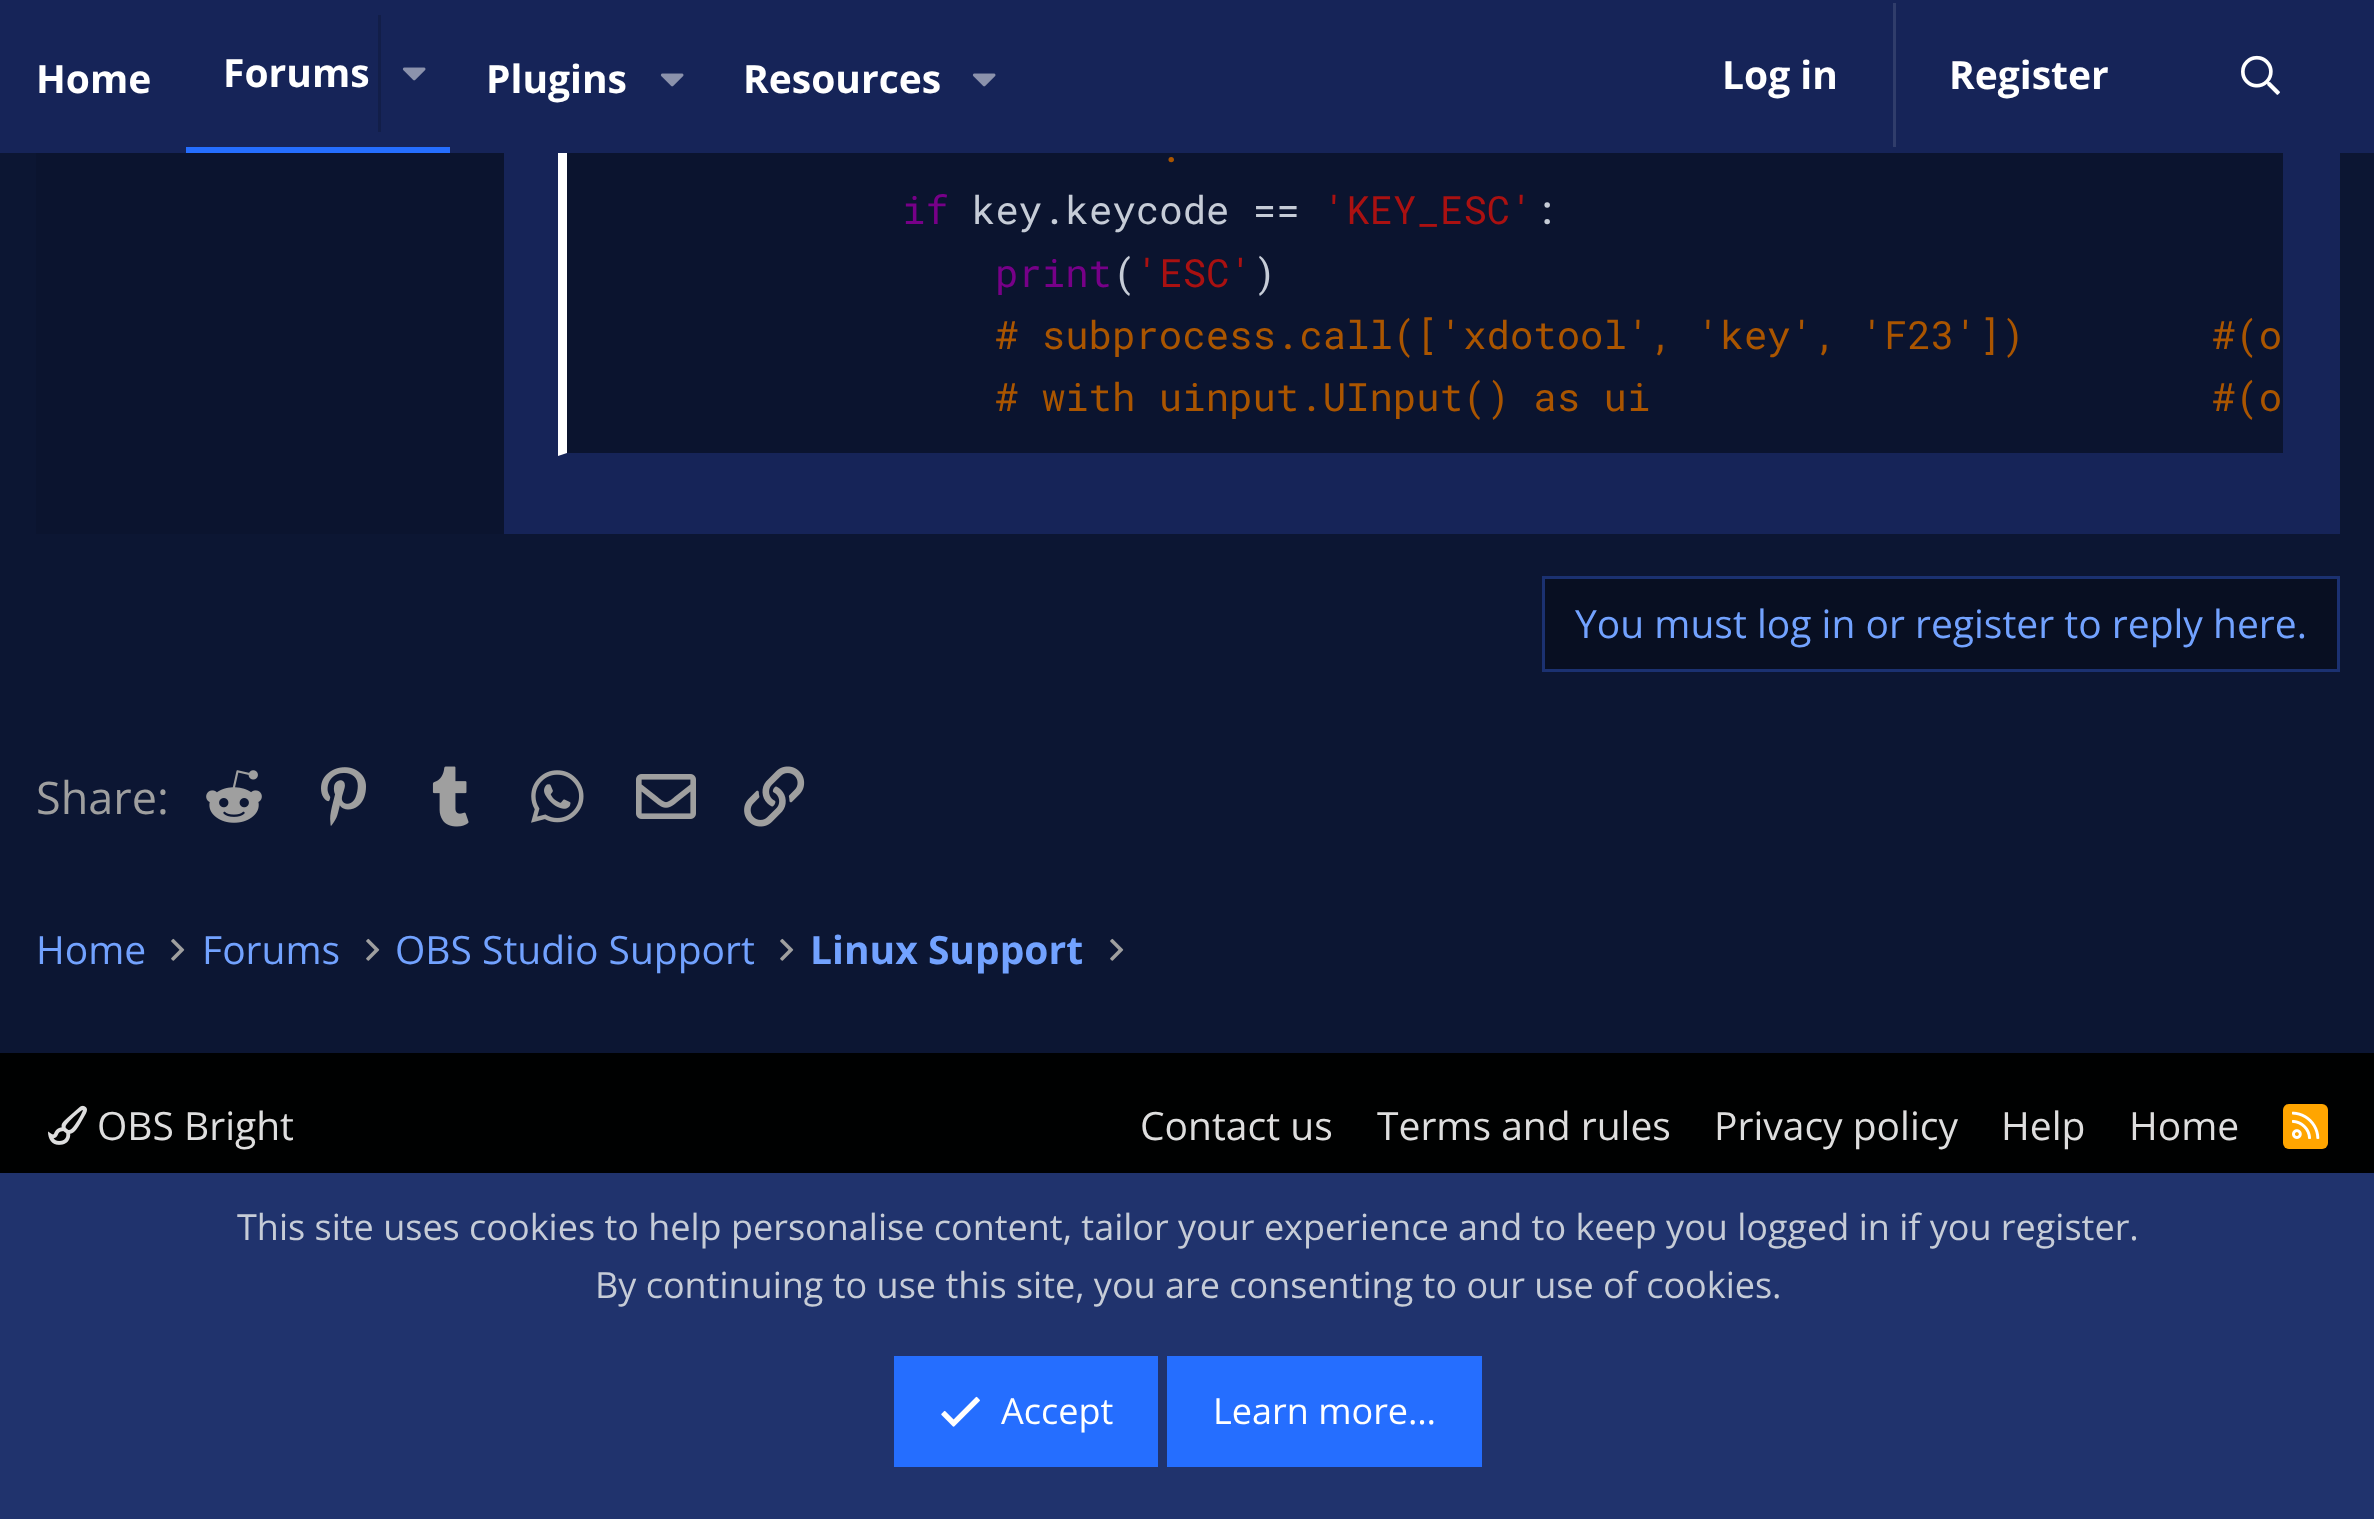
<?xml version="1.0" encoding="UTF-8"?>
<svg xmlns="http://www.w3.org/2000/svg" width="2374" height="1519">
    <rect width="100%" height="100%" fill="#0C1633"/>
    <rect x="504" y="153" width="1836" height="381" fill="#162458"/>
    <path d="M 558 456 V -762 L 567 -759 V 453 Z" fill="#FFFFFF"/>
    <rect x="0" y="0" width="2374" height="153" fill="#162458"/>
    <text x="36" y="93" font-family="Open Sans" font-size="39" font-weight="700" fill="#FFFFFF">Home</text>
    <rect x="186" y="147" width="264" height="6" fill="#256EFF"/>
    <text x="223" y="87" font-family="Open Sans" font-size="39" font-weight="700" fill="#FFFFFF">Forums</text>
    <rect x="378" y="15" width="3" height="117" fill="#121E49"/>
    <image x="402" y="67" width="24" height="14" href="img_01.png"/>
    <text x="486" y="93" font-family="Open Sans" font-size="39" font-weight="700" fill="#FFFFFF">Plugins</text>
    <image x="660" y="73" width="24" height="14" href="img_01.png"/>
    <text x="743" y="93" font-family="Open Sans" font-size="39" font-weight="700" fill="#FFFFFF">Resources</text>
    <image x="972" y="73" width="24" height="14" href="img_01.png"/>
    <text x="1722" y="89" font-family="Open Sans" font-size="39" font-weight="700" fill="#FFFFFF">Log in</text>
    <rect x="1893" y="3" width="3" height="144" fill="#303D6B"/>
    <text x="1949" y="89" font-family="Open Sans" font-size="39" font-weight="700" fill="#FFFFFF">Register</text>
    <image x="2241" y="55" width="39" height="40" href="img_02.png"/>
    <rect x="36" y="153" width="468" height="381" fill="#0B142F"/>
    <rect x="567" y="153" width="1716" height="300" fill="#0B142F"/>
    <text x="1159" y="162" font-family="Roboto Mono" font-size="39" fill="#AA5500">.</text>
    <text x="902" y="224" font-family="Roboto Mono" font-size="39" fill="#770088">if</text>
    <text x="972" y="224" font-family="Roboto Mono" font-size="39" fill="#C6CCD7">key.keycode ==</text>
    <text x="1323" y="224" font-family="Roboto Mono" font-size="39" fill="#AA1111">'KEY_ESC'</text>
    <text x="1534" y="224" font-family="Roboto Mono" font-size="39" fill="#C6CCD7">:</text>
    <text x="995" y="287" font-family="Roboto Mono" font-size="39" fill="#770088">print</text>
    <text x="1113" y="287" font-family="Roboto Mono" font-size="39" fill="#C6CCD7">(</text>
    <text x="1136" y="287" font-family="Roboto Mono" font-size="39" fill="#AA1111">'ESC'</text>
    <text x="1253" y="287" font-family="Roboto Mono" font-size="39" fill="#C6CCD7">)</text>
    <text font-family="Roboto Mono" font-size="39" fill="#AA5500" xml:space="preserve"><tspan x="995" y="349"># subprocess.call(['xdotool', 'key', 'F23'])        #(o</tspan><tspan x="995" y="411"># with uinput.UInput() as ui                        #(o</tspan></text>
    <rect x="1543.5" y="577.5" width="795" height="93" fill="#080F22" stroke="#1B3171" stroke-width="3"/>
    <text x="1575" y="638" font-family="Open Sans" font-size="39" fill="#72A2FF">You must log in or register to reply here.</text>
    <text x="36" y="814" font-family="Open Sans" font-size="45" fill="#9F9F9F">Share:</text>
    <image x="206" y="770" width="56" height="53" href="img_03.png"/>
    <image x="321" y="767" width="45" height="59" href="img_04.png"/>
    <image x="432" y="766" width="37" height="61" href="img_05.png"/>
    <image x="531" y="770" width="53" height="53" href="img_06.png"/>
    <image x="636" y="774" width="60" height="45" href="img_07.png"/>
    <image x="744" y="766" width="61" height="61" href="img_08.png"/>
    <text x="36" y="964" font-family="Open Sans" font-size="39" fill="#72A2FF">Home</text>
    <image x="171" y="938" width="14" height="23" href="img_09.png"/>
    <text x="202" y="964" font-family="Open Sans" font-size="39" fill="#72A2FF">Forums</text>
    <image x="366" y="938" width="14" height="23" href="img_09.png"/>
    <text x="395" y="964" font-family="Open Sans" font-size="39" fill="#72A2FF">OBS Studio Support</text>
    <image x="780" y="938" width="14" height="23" href="img_09.png"/>
    <text x="810" y="964" font-family="Open Sans" font-size="39" font-weight="700" fill="#72A2FF">Linux Support</text>
    <image x="1110" y="938" width="14" height="23" href="img_09.png"/>
    <rect x="0" y="1053" width="2374" height="120" fill="#000101"/>
    <image x="48" y="1105" width="39" height="40" href="img_10.png"/>
    <text x="97" y="1140" font-family="Open Sans" font-size="39" fill="#DEDEDE">OBS Bright</text>
    <text x="1140" y="1140" font-family="Open Sans" font-size="39" fill="#DEDEDE">Contact us</text>
    <text x="1377" y="1140" font-family="Open Sans" font-size="39" fill="#DEDEDE">Terms and rules</text>
    <text x="1714" y="1140" font-family="Open Sans" font-size="39" fill="#DEDEDE">Privacy policy</text>
    <text x="2001" y="1140" font-family="Open Sans" font-size="39" fill="#DEDEDE">Help</text>
    <text x="2129" y="1140" font-family="Open Sans" font-size="39" fill="#DEDEDE">Home</text>
    <rect x="2283" y="1104" width="45" height="45" rx="6" fill="#FFA500"/>
    <image x="2292" y="1111" width="28" height="28" href="img_11.png"/>
    <rect x="0" y="1173" width="2374" height="346" fill="#20336D"/>
    <text x="237" y="1240" font-family="Open Sans" font-size="36" fill="#C6CCD7">This site uses cookies to help personalise content, tailor your experience and to keep you logged in if you register.</text>
    <text x="595" y="1298" font-family="Open Sans" font-size="36" fill="#C6CCD7">By continuing to use this site, you are consenting to our use of cookies.</text>
    <rect x="894" y="1356" width="264" height="111" fill="#256EFF"/>
    <image x="941" y="1396" width="39" height="31" href="img_12.png"/>
    <text x="1001" y="1424" font-family="Open Sans" font-size="36" fill="#FFFFFF">Accept</text>
    <rect x="1167" y="1356" width="315" height="111" fill="#256EFF"/>
    <text x="1213" y="1424" font-family="Open Sans" font-size="36" fill="#FFFFFF">Learn more…</text>
</svg>
